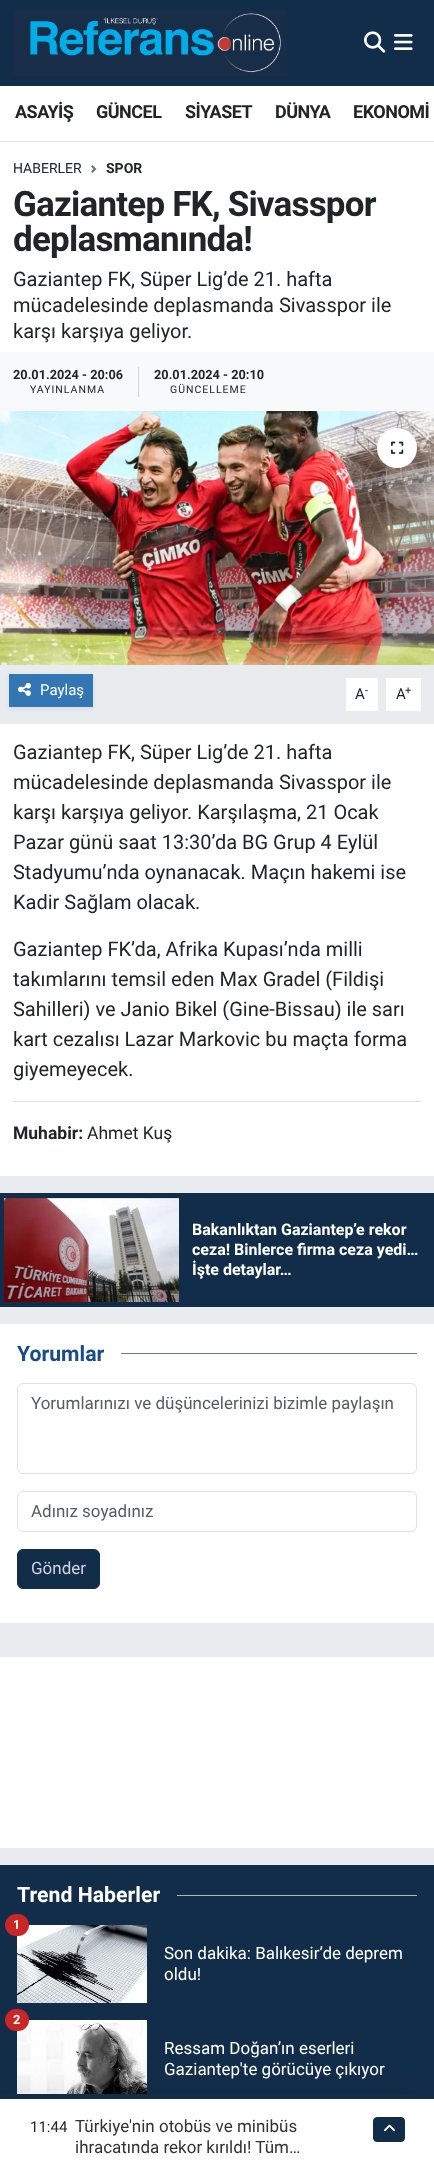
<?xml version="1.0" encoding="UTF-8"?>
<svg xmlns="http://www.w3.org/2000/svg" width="434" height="2184">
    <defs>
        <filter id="blur1" x="-50%" y="-200%" width="200%" height="500%"><feGaussianBlur stdDeviation="2"/></filter>
        <filter id="blur2" x="-50%" y="-200%" width="200%" height="500%"><feGaussianBlur stdDeviation="25.5"/></filter>
    </defs>
    <rect width="100%" height="100%" fill="#E9ECEF"/>
    <rect x="0" y="0" width="434" height="86" fill="#122D4A"/>
    <image x="13" y="10" width="275" height="66" href="img_01.png"/>
    <image x="364" y="31" width="22" height="22" href="img_02.png"/>
    <image x="394" y="34" width="19" height="16" href="img_03.png"/>
    <rect x="0" y="86" width="434" height="55" fill="#FFFFFF"/>
    <rect x="0" y="141" width="434" height="1" fill="#E6E6E6"/>
    <text x="15" y="118" font-family="Roboto" font-size="18" font-weight="700" letter-spacing="-0.5" fill="#212529">ASAYİŞ</text>
    <text x="96" y="118" font-family="Roboto" font-size="18" font-weight="700" letter-spacing="-0.5" fill="#212529">GÜNCEL</text>
    <text x="185" y="118" font-family="Roboto" font-size="18" font-weight="700" letter-spacing="-0.5" fill="#212529">SİYASET</text>
    <text x="275" y="118" font-family="Roboto" font-size="18" font-weight="700" letter-spacing="-0.5" fill="#212529">DÜNYA</text>
    <text x="353" y="118" font-family="Roboto" font-size="18" font-weight="700" letter-spacing="-0.5" fill="#212529">EKONOMİ</text>
    <rect x="0" y="142" width="434" height="210" fill="#FFFFFF"/>
    <text x="13" y="173" font-family="Roboto" font-size="14" fill="#212529">HABERLER</text>
    <image x="91" y="165" width="6" height="8" href="img_04.png"/>
    <text x="106" y="173" font-family="Roboto" font-size="14" font-weight="700" fill="#212529">SPOR</text>
    <text font-family="Roboto" font-size="35" font-weight="700" letter-spacing="-0.8" fill="#212529">
        <tspan x="13" y="216">Gaziantep FK, Sivasspor</tspan>
        <tspan x="13" y="251">deplasmanında!</tspan>
    </text>
    <text font-family="Roboto" font-size="20" fill="#212529">
        <tspan x="13" y="286">Gaziantep FK, Süper Lig’de 21. hafta</tspan>
        <tspan x="13" y="312">mücadelesinde deplasmanda Sivasspor ile</tspan>
        <tspan x="13" y="338">karşı karşıya geliyor.</tspan>
    </text>
    <rect x="0" y="352" width="434" height="59" fill="#F8F9FA"/>
    <rect x="138" y="367" width="1" height="30" fill="#CED4DA"/>
    <text x="13" y="379" font-family="Roboto" font-size="12.75" font-weight="700" fill="#212529">20.01.2024 - 20:06</text>
    <text x="30" y="393" font-family="Roboto" font-size="10.5" letter-spacing="1" fill="#212529">YAYINLANMA</text>
    <text x="154" y="379" font-family="Roboto" font-size="12.75" font-weight="700" fill="#212529">20.01.2024 - 20:10</text>
    <text x="170" y="393" font-family="Roboto" font-size="10.5" letter-spacing="1" fill="#212529">GÜNCELLEME</text>
    <image x="0" y="411" width="434" height="254" href="img_05.png"/>
    <circle cx="397" cy="448" r="20" fill="#FFFFFF"/>
    <image x="391" y="441" width="13" height="13" href="img_06.png"/>
    <rect x="9" y="676" width="84" height="33" fill="#000000" fill-opacity="0.07" filter="url(#blur1)"/>
    <rect x="9" y="674" width="84" height="33" fill="#3276B3"/>
    <image x="18" y="682" width="13" height="14" href="img_07.png"/>
    <text x="40" y="695" font-family="Roboto" font-size="15" fill="#FFFFFF">Paylaş</text>
    <rect x="346" y="678" width="32" height="33" fill="#FFFFFF"/>
    <text x="355" y="699" font-family="Roboto" font-size="15" fill="#212529">A</text>
    <text x="365" y="694" font-family="Roboto" font-size="11" fill="#212529">-</text>
    <rect x="386" y="678" width="35" height="33" fill="#FFFFFF"/>
    <text x="396" y="699" font-family="Roboto" font-size="15" fill="#212529">A</text>
    <text x="405" y="694" font-family="Roboto" font-size="11" fill="#212529">+</text>
    <rect x="0" y="724" width="434" height="452" fill="#FFFFFF"/>
    <text font-family="Roboto" font-size="20" fill="#212529">
        <tspan x="13" y="759">Gaziantep FK, Süper Lig’de 21. hafta</tspan>
        <tspan x="13" y="789">mücadelesinde deplasmanda Sivasspor ile</tspan>
        <tspan x="13" y="819">karşı karşıya geliyor. Karşılaşma, 21 Ocak</tspan>
        <tspan x="13" y="849">Pazar günü saat 13:30’da BG Grup 4 Eylül</tspan>
        <tspan x="13" y="879">Stadyumu’nda oynanacak. Maçın hakemi ise</tspan>
        <tspan x="13" y="909">Kadir Sağlam olacak.</tspan>
    </text>
    <text font-family="Roboto" font-size="20" fill="#212529">
        <tspan x="13" y="956">Gaziantep FK’da, Afrika Kupası’nda milli</tspan>
        <tspan x="13" y="986">takımlarını temsil eden Max Gradel (Fildişi</tspan>
        <tspan x="13" y="1016">Sahilleri) ve Janio Bikel (Gine-Bissau) ile sarı</tspan>
        <tspan x="13" y="1046">kart cezalısı Lazar Markovic bu maçta forma</tspan>
        <tspan x="13" y="1076">giyemeyecek.</tspan>
    </text>
    <rect x="13" y="1101" width="408" height="1" fill="#DEE2E6"/>
    <text x="13" y="1139" font-family="Roboto" font-size="17.5" font-weight="700" fill="#212529">Muhabir:</text>
    <text x="87" y="1139" font-family="Roboto" font-size="17.5" fill="#212529">Ahmet Kuş</text>
    <rect x="0" y="1193" width="434" height="114" fill="#122D4A"/>
    <image x="4" y="1198" width="175" height="104" href="img_08.png"/>
    <text font-family="Roboto" font-size="16" font-weight="700" fill="#FFFFFF">
        <tspan x="192" y="1235">Bakanlıktan Gaziantep’e rekor</tspan>
        <tspan x="192" y="1255">ceza! Binlerce firma ceza yedi…</tspan>
        <tspan x="192" y="1275">İşte detaylar…</tspan>
    </text>
    <rect x="0" y="1324" width="434" height="299" fill="#FFFFFF"/>
    <text x="17" y="1361" font-family="Roboto" font-size="21.25" font-weight="700" fill="#184D85">Yorumlar</text>
    <rect x="121" y="1353" width="296" height="1" fill="#5D82AA"/>
    <rect x="17.5" y="1383.5" width="399" height="90" rx="5.5" fill="none" stroke="#DEE2E6"/>
    <text x="31" y="1409" font-family="Roboto" font-size="17" fill="#595C5F">Yorumlarınızı ve düşüncelerinizi bizimle paylaşın</text>
    <rect x="17.5" y="1491.5" width="399" height="40" rx="5.5" fill="none" stroke="#DEE2E6"/>
    <text x="31" y="1517" font-family="Roboto" font-size="17" fill="#595C5F">Adınız soyadınız</text>
    <rect x="17.5" y="1549.5" width="82" height="39" rx="5.5" fill="#122D4A" stroke="#122D4A"/>
    <text x="31" y="1574" font-family="Roboto" font-size="17" fill="#D0D5DB">Gönder</text>
    <rect x="0" y="1657" width="434" height="191" fill="#FFFFFF"/>
    <rect x="0" y="1865" width="434" height="229" fill="#122D4A"/>
    <text x="17" y="1902" font-family="Roboto" font-size="21.25" font-weight="700" fill="#FFFFFF">Trend Haberler</text>
    <rect x="177" y="1895" width="240" height="1" fill="#ADB5BE"/>
    <image x="17" y="1925" width="130" height="78" href="img_09.png"/>
    <rect x="5" y="1914" width="24" height="22" rx="11" fill="#CA2527"/>
    <text x="13" y="1929" font-family="Roboto" font-size="12.75" font-weight="700" fill="#FFFFFF">1</text>
    <text font-family="Roboto" font-size="17" fill="#FFFFFF">
        <tspan x="164" y="1959">Son dakika: Balıkesir’de deprem</tspan>
        <tspan x="164" y="1980">oldu!</tspan>
    </text>
    <image x="17" y="2020" width="130" height="74" href="img_10.png"/>
    <rect x="5" y="2009" width="24" height="22" rx="11" fill="#CA2527"/>
    <text x="13" y="2024" font-family="Roboto" font-size="12.75" font-weight="700" fill="#FFFFFF">2</text>
    <text font-family="Roboto" font-size="17" fill="#FFFFFF">
        <tspan x="164" y="2054">Ressam Doğan’ın eserleri</tspan>
        <tspan x="164" y="2075">Gaziantep'te görücüye çıkıyor</tspan>
    </text>
    <rect x="0" y="2111" width="434" height="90" fill="#000000" fill-opacity="0.18" filter="url(#blur2)"/>
    <rect x="0" y="2099" width="434" height="85" fill="#FFFFFF"/>
    <rect x="0" y="2094" width="434" height="5" fill="#122D4A"/>
    <text x="30" y="2132" font-family="Roboto" font-size="15" fill="#212529">11:44</text>
    <text font-family="Roboto" font-size="17" fill="#333333">
        <tspan x="75" y="2132">Türkiye'nin otobüs ve minibüs</tspan>
        <tspan x="75" y="2153">ihracatında rekor kırıldı! Tüm…</tspan>
    </text>
    <rect x="373.5" y="2117.5" width="31" height="24" rx="3.5" fill="#122D4A" stroke="#122D4A"/>
    <image x="384" y="2124" width="11" height="8" href="img_11.png"/>
</svg>
